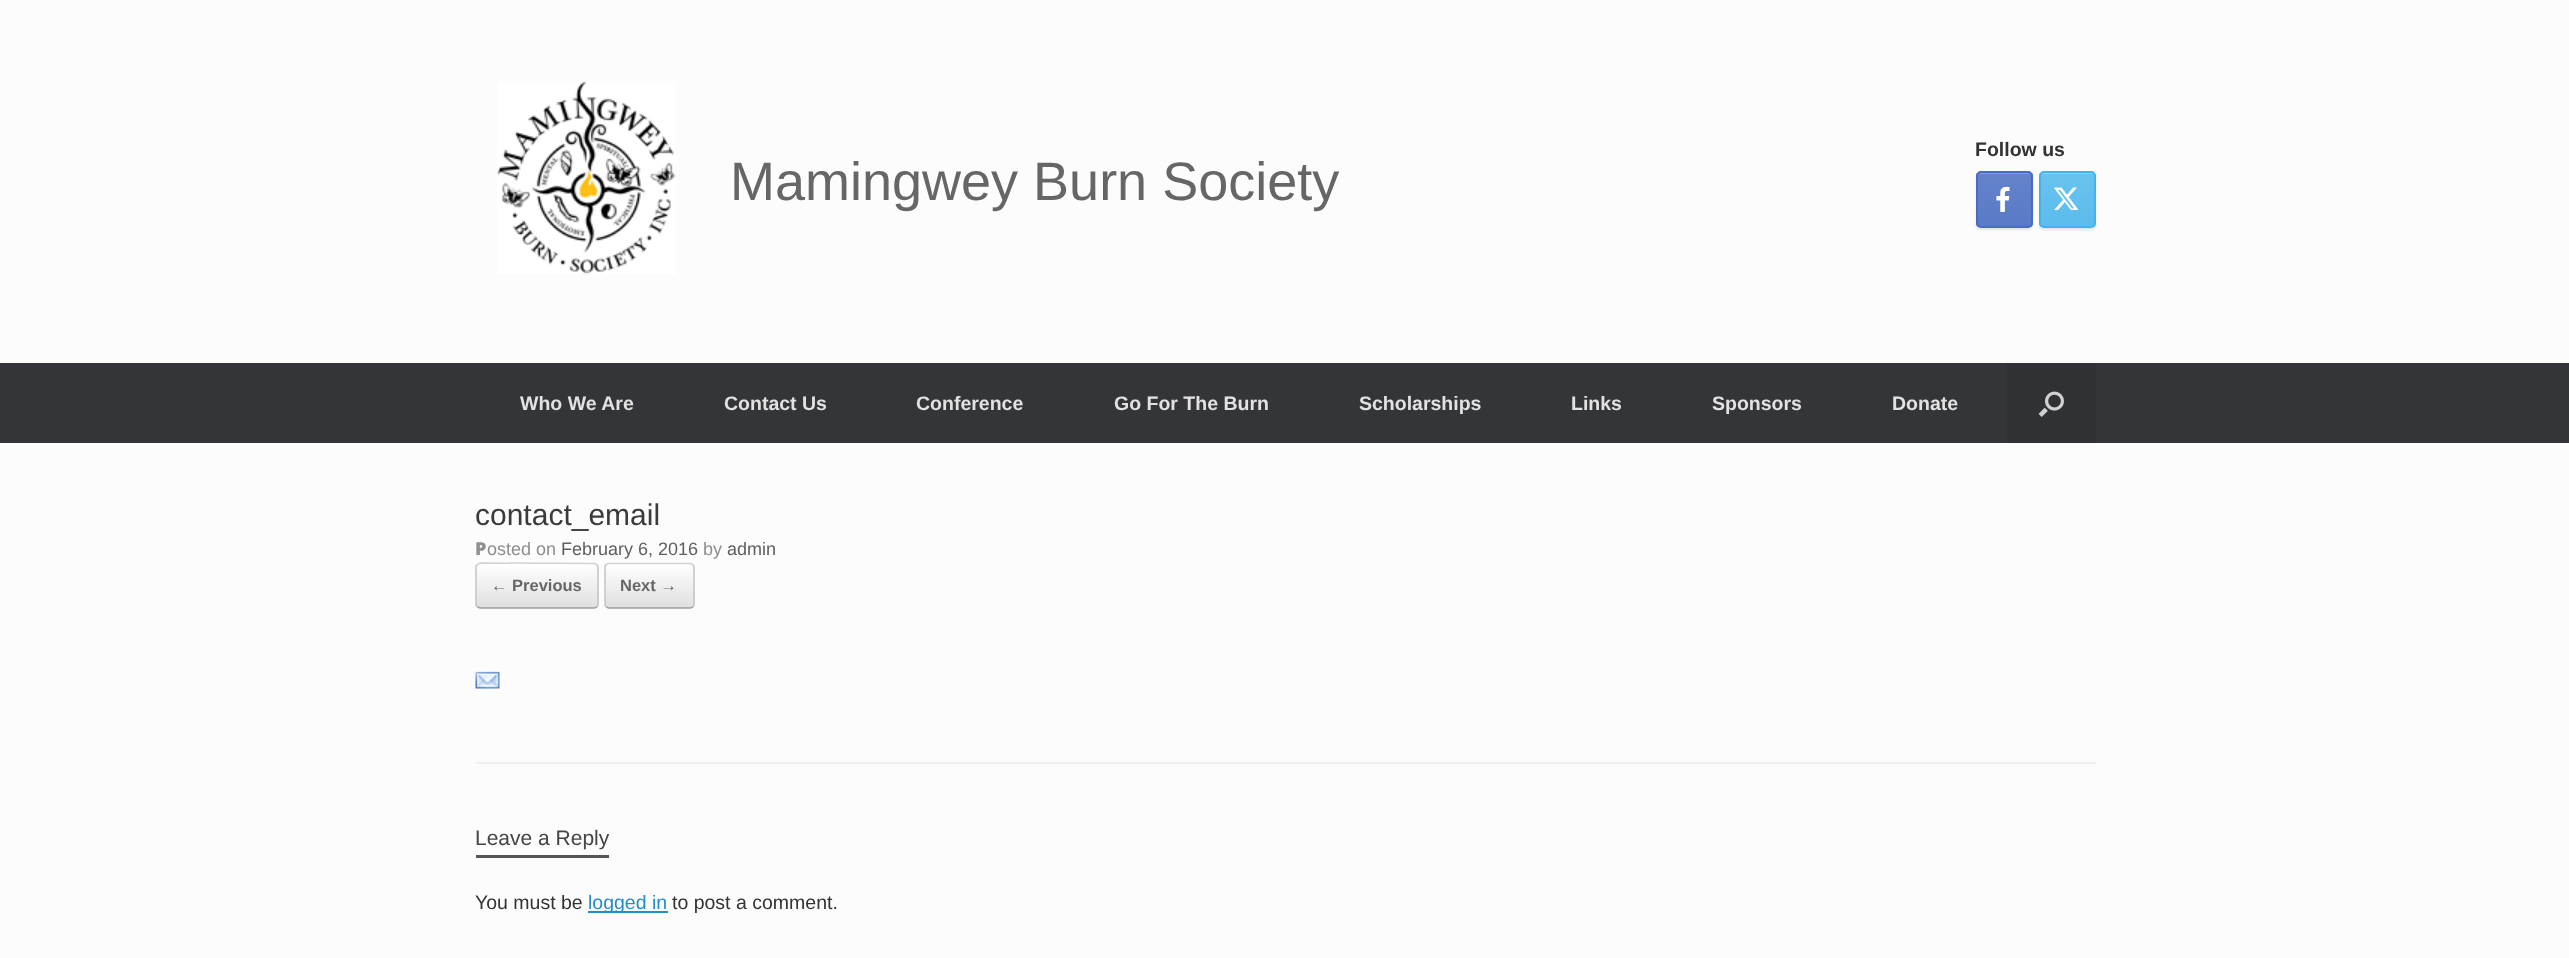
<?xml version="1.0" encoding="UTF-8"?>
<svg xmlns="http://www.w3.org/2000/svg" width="2569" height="958">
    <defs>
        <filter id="blur1" x="-50%" y="-200%" width="200%" height="500%"><feGaussianBlur stdDeviation="1"/></filter>
        <clipPath id="clip1"><rect x="1976" y="171" width="57" height="57" rx="5"/></clipPath>
        <linearGradient id="g1" gradientUnits="userSpaceOnUse" x1="1977" y1="227" x2="1977" y2="173"><stop offset="0" stop-color="#597AC7"/><stop offset="1" stop-color="#6483CB"/></linearGradient>
        <clipPath id="clip2"><rect x="2039" y="171" width="57" height="57" rx="5"/></clipPath>
        <linearGradient id="g2" gradientUnits="userSpaceOnUse" x1="2040" y1="227" x2="2040" y2="173"><stop offset="0" stop-color="#5BBCEC"/><stop offset="1" stop-color="#69C2EE"/></linearGradient>
        <clipPath id="clip3"><rect x="476" y="563" width="123" height="46" rx="5"/></clipPath>
        <linearGradient id="g3" gradientUnits="userSpaceOnUse" x1="477" y1="608" x2="477" y2="564"><stop offset="0" stop-color="#DFDFDF"/><stop offset="1" stop-color="#FFFFFF"/></linearGradient>
        <linearGradient id="g4" gradientUnits="userSpaceOnUse" x1="477" y1="651" x2="477" y2="608"><stop offset="0" stop-color="#DFDFDF"/><stop offset="1" stop-color="#FFFFFF"/></linearGradient>
        <clipPath id="clip4"><rect x="605" y="563" width="90" height="46" rx="5"/></clipPath>
        <linearGradient id="g5" gradientUnits="userSpaceOnUse" x1="606" y1="608" x2="606" y2="564"><stop offset="0" stop-color="#DFDFDF"/><stop offset="1" stop-color="#FFFFFF"/></linearGradient>
        <linearGradient id="g6" gradientUnits="userSpaceOnUse" x1="606" y1="651" x2="606" y2="608"><stop offset="0" stop-color="#DFDFDF"/><stop offset="1" stop-color="#FFFFFF"/></linearGradient>
    </defs>
    <rect width="100%" height="100%" fill="#FCFCFC"/>
    <text x="1975" y="156" font-family="Liberation Sans" font-size="19.5" font-weight="700" fill="#333333">Follow us</text>
    <rect x="1976" y="173" width="57" height="57" rx="5" fill="#000000" fill-opacity="0.1" filter="url(#blur1)"/>
    <g clip-path="url(#clip1)">
        <rect x="1976" y="173" width="57" height="54" fill="url(#g1)"/>
    </g>
    <path d="M 1980 174 H 2028 C 2030 174 2031 175 2031 177 C 2031 171 2024 173 2020 173 H 1988 C 1984 173 1977 171 1977 177 C 1977 175 1978 174 1980 174 Z" fill="#839CD5"/>
    <rect x="1977" y="172" width="55" height="55" rx="4" fill="none" stroke="#466BC1" stroke-width="2"/>
    <image x="1996" y="186" width="14" height="26" href="img_01.png"/>
    <rect x="2039" y="173" width="57" height="57" rx="5" fill="#000000" fill-opacity="0.1" filter="url(#blur1)"/>
    <g clip-path="url(#clip2)">
        <rect x="2039" y="173" width="57" height="54" fill="url(#g2)"/>
    </g>
    <path d="M 2043 174 H 2091 C 2093 174 2094 175 2094 177 C 2094 171 2087 173 2083 173 H 2051 C 2047 173 2040 171 2040 177 C 2040 175 2041 174 2043 174 Z" fill="#8FD1F2"/>
    <rect x="2040" y="172" width="55" height="55" rx="4" fill="none" stroke="#44B3E9" stroke-width="2"/>
    <image x="2053" y="187" width="26" height="23" href="img_02.png"/>
    <image x="497" y="81" width="179" height="193" href="img_03.png"/>
    <text x="730" y="200" font-family="Liberation Sans" font-size="54" fill="#666666">Mamingwey Burn Society</text>
    <rect x="0" y="363" width="2569" height="80" fill="#343538"/>
    <text x="520" y="410" font-family="Liberation Sans" font-size="19.5" font-weight="700" fill="#E2E2E2">Who We Are</text>
    <text x="724" y="410" font-family="Liberation Sans" font-size="19.5" font-weight="700" fill="#E2E2E2">Contact Us</text>
    <text x="916" y="410" font-family="Liberation Sans" font-size="19.5" font-weight="700" fill="#E2E2E2">Conference</text>
    <text x="1114" y="410" font-family="Liberation Sans" font-size="19.5" font-weight="700" fill="#E2E2E2">Go For The Burn</text>
    <text x="1359" y="410" font-family="Liberation Sans" font-size="19.5" font-weight="700" fill="#E2E2E2">Scholarships</text>
    <text x="1571" y="410" font-family="Liberation Sans" font-size="19.5" font-weight="700" fill="#E2E2E2">Links</text>
    <text x="1712" y="410" font-family="Liberation Sans" font-size="19.5" font-weight="700" fill="#E2E2E2">Sponsors</text>
    <text x="1892" y="410" font-family="Liberation Sans" font-size="19.5" font-weight="700" fill="#E2E2E2">Donate</text>
    <rect x="2007" y="363" width="89" height="80" fill="#303134"/>
    <image x="2038" y="391" width="26" height="26" href="img_04.png"/>
    <rect x="476" y="762" width="1620" height="2" fill="#EEEEEE"/>
    <text x="475" y="525" font-family="Liberation Sans" font-size="30" fill="#3B3B3B">contact_email</text>
    <text x="475" y="555" font-family="Noto Sans" font-size="18" font-weight="900" fill="#8F8F8F">P</text>
    <text x="487" y="555" font-family="Liberation Sans" font-size="18" fill="#8F8F8F">osted on</text>
    <text x="561" y="555" font-family="Liberation Sans" font-size="18" fill="#5E5E5E">February 6, 2016</text>
    <text x="703" y="555" font-family="Liberation Sans" font-size="18" fill="#8F8F8F">by</text>
    <text x="727" y="555" font-family="Liberation Sans" font-size="18" fill="#5E5E5E">admin</text>
    <g clip-path="url(#clip3)">
        <rect x="476" y="564" width="123" height="44" fill="url(#g3)"/>
        <rect x="476" y="608" width="123" height="1" fill="url(#g4)"/>
    </g>
    <path d="M 477.5 564.5 L 480 563 L 594.5 563.5 L 596.5 564.5" fill="none" stroke="#D2D2D2" stroke-width="1.5"/>
    <path d="M 596.5 564.5 C 597.5 565 598 566 598 567 V 604.5 C 598 605.5 597.5 606.5 596.5 607" fill="none" stroke="#C3C3C3" stroke-width="1.5"/>
    <path d="M 596.5 607 L 594.5 608 H 499 H 480 L 477.5 607" fill="none" stroke="#9F9F9F" stroke-width="1.5"/>
    <path d="M 477.5 607 C 476.5 606.5 476 605.5 476 604.5 V 567 C 476 566 476.5 565 477.5 564.5" fill="none" stroke="#C3C3C3" stroke-width="1.5"/>
    <text x="491" y="591" font-family="Liberation Sans" font-size="16.5" font-weight="700" fill="#666666">← Previous</text>
    <g clip-path="url(#clip4)">
        <rect x="605" y="564" width="90" height="44" fill="url(#g5)"/>
        <rect x="605" y="608" width="90" height="1" fill="url(#g6)"/>
    </g>
    <path d="M 606.5 564.5 L 608.5 563.5 H 690.5 L 692.5 564.5" fill="none" stroke="#D2D2D2" stroke-width="1.5"/>
    <path d="M 692.5 564.5 C 693.5 565 694 566 694 567 V 604.5 C 694 605.5 693.5 606.5 692.5 607" fill="none" stroke="#C3C3C3" stroke-width="1.5"/>
    <path d="M 692.5 607 L 690.5 608 H 608.5 L 606.5 607" fill="none" stroke="#9F9F9F" stroke-width="1.5"/>
    <path d="M 606.5 607 C 605.5 606.5 605 605.5 605 604.5 V 567 C 605 566 605.5 565 606.5 564.5" fill="none" stroke="#C3C3C3" stroke-width="1.5"/>
    <text x="620" y="591" font-family="Liberation Sans" font-size="16.5" font-weight="700" fill="#666666">Next →</text>
    <image x="475" y="671" width="25" height="18" href="img_05.png"/>
    <rect x="476" y="855" width="133" height="3" fill="#555555"/>
    <text x="475" y="845" font-family="Liberation Sans" font-size="21" fill="#444444">Leave a Reply</text>
    <text x="475" y="909" font-family="Liberation Sans" font-size="19.5" fill="#333333">You must be</text>
    <rect x="588" y="911" width="80" height="2" fill="#248CC8"/>
    <text x="588" y="909" font-family="Liberation Sans" font-size="19.5" fill="#248CC8">logged in</text>
    <text x="672" y="909" font-family="Liberation Sans" font-size="19.5" fill="#333333">to post a comment.</text>
</svg>
